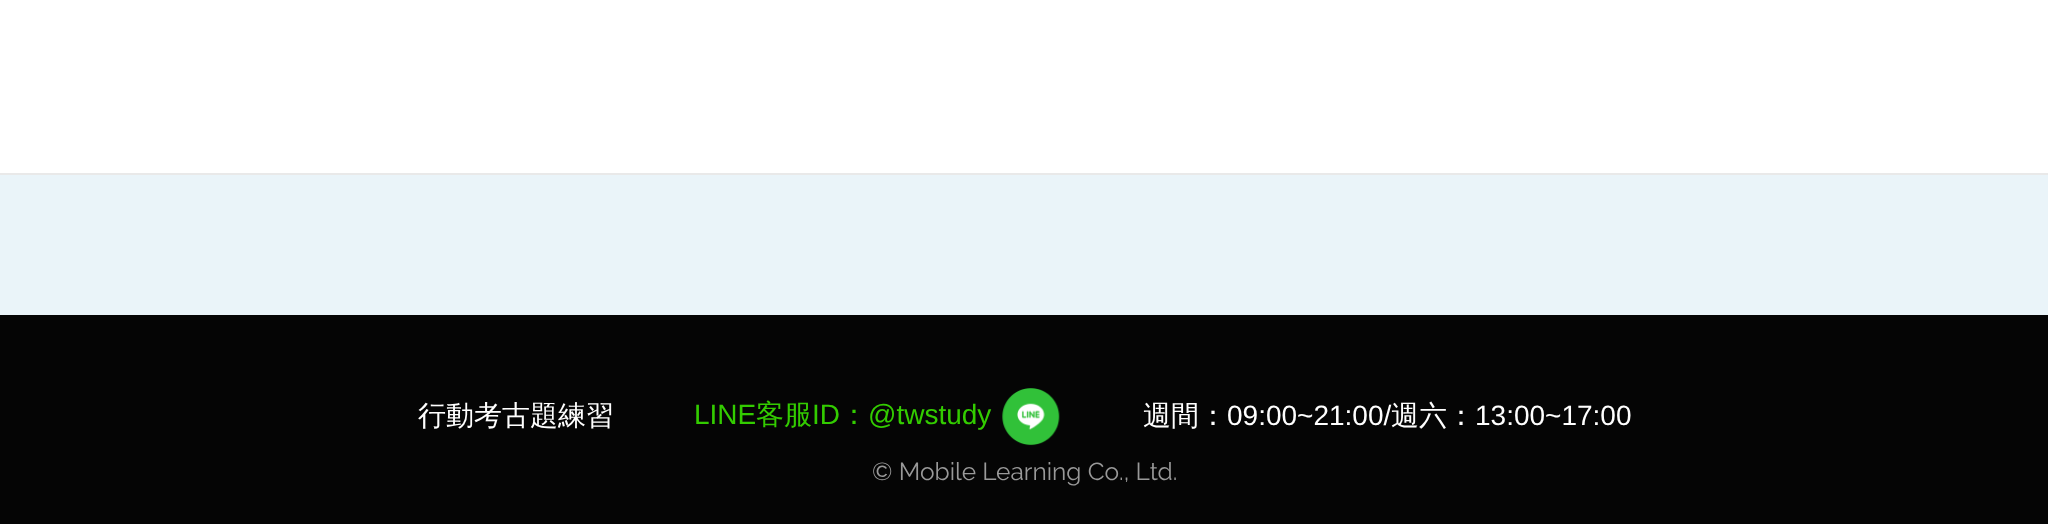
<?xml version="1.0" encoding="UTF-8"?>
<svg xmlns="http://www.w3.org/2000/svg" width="2048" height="524">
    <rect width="100%" height="100%" fill="#EAF4F9"/>
    <rect x="0" y="0" width="2048" height="173" fill="#FFFFFF"/>
    <rect x="0" y="173" width="2048" height="2" fill="#E9E9E9"/>
    <rect x="0" y="315" width="2048" height="209" fill="#050505"/>
    <text x="418" y="425" font-family="WenQuanYi Zen Hei" font-size="28" font-weight="500" fill="#FFFFFF">行動考古題練習</text>
    <text x="694" y="424" font-family="Liberation Sans" font-size="28" fill="#33CC00">LINE</text>
    <text x="756" y="424" font-family="WenQuanYi Zen Hei" font-size="28" font-weight="500" fill="#33CC00">客服</text>
    <text x="812" y="424" font-family="Liberation Sans" font-size="28" fill="#33CC00">ID</text>
    <text x="840" y="424" font-family="WenQuanYi Zen Hei" font-size="28" font-weight="500" fill="#33CC00">：</text>
    <text x="868" y="424" font-family="Liberation Sans" font-size="28" fill="#33CC00">@twstudy</text>
    <image x="1002" y="388" width="58" height="58" href="img_01.png"/>
    <text x="1143" y="425" font-family="WenQuanYi Zen Hei" font-size="28" font-weight="500" fill="#FFFFFF">週間：</text>
    <text x="1227" y="425" font-family="Liberation Sans" font-size="28" fill="#FFFFFF">09:00~21:00/</text>
    <text x="1391" y="425" font-family="WenQuanYi Zen Hei" font-size="28" font-weight="500" fill="#FFFFFF">週六：</text>
    <text x="1475" y="425" font-family="Liberation Sans" font-size="28" fill="#FFFFFF">13:00~17:00</text>
    <text x="872" y="480" font-family="Raleway" font-size="24.5" fill="#999999">© Mobile Learning Co., Ltd.</text>
</svg>
